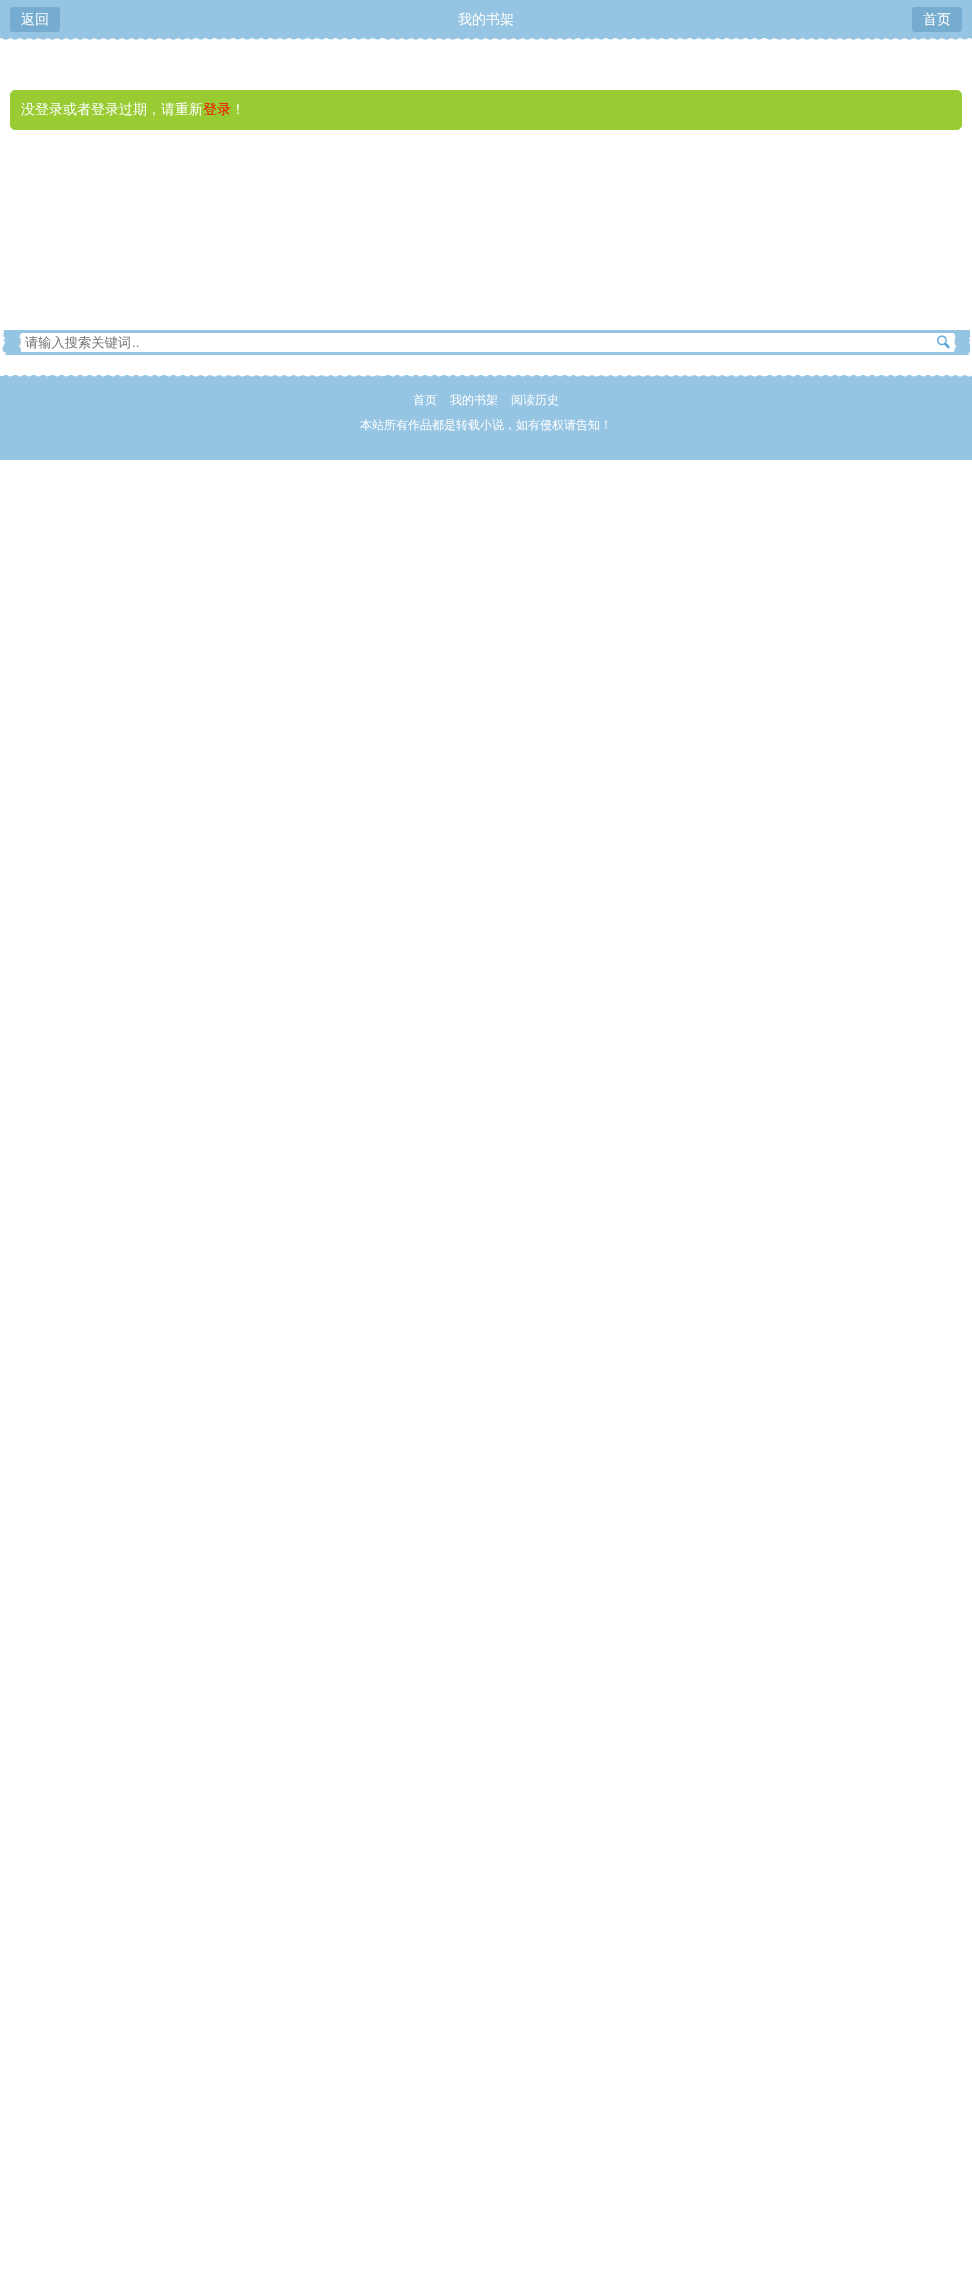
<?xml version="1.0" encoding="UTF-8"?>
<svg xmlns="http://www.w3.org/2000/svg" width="972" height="2294">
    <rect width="100%" height="100%" fill="#FFFFFF"/>
    <image x="0" y="0" width="972" height="40" href="img_01.png"/>
    <rect x="10" y="7" width="50" height="25" rx="3" fill="#76ACCF"/>
    <text x="21" y="24" font-family="WenQuanYi Zen Hei" font-size="14" font-weight="500" fill="#FFFFFF">返回</text>
    <text x="458" y="24" font-family="WenQuanYi Zen Hei" font-size="14" font-weight="500" fill="#FFFFFF">我的书架</text>
    <rect x="912" y="7" width="50" height="25" rx="3" fill="#76ACCF"/>
    <text x="923" y="24" font-family="WenQuanYi Zen Hei" font-size="14" font-weight="500" fill="#FFFFFF">首页</text>
    <rect x="10.5" y="90.5" width="951" height="39" rx="4.5" fill="#99CC33" stroke="#99CC33"/>
    <text x="21" y="114" font-family="WenQuanYi Zen Hei" font-size="14" font-weight="500" fill="#FFFFFF">没登录或者登录过期，请重新</text>
    <text x="203" y="114" font-family="WenQuanYi Zen Hei" font-size="14" font-weight="500" fill="#FF0000">登录</text>
    <text x="231" y="114" font-family="WenQuanYi Zen Hei" font-size="14" font-weight="500" fill="#FFFFFF">！</text>
    <image x="2" y="330" width="19" height="25" href="img_02.png"/>
    <rect x="20" y="330" width="934" height="3" fill="#96C5E3"/>
    <rect x="20" y="352" width="934" height="3" fill="#96C5E3"/>
    <text x="25" y="347" font-family="WenQuanYi Zen Hei" font-size="13.25" font-weight="500" fill="#757575">请输入搜索关键词</text>
    <text x="132" y="347" font-family="Liberation Sans" font-size="13.25" fill="#757575">..</text>
    <image x="937" y="335" width="13" height="14" href="img_03.png"/>
    <image x="954" y="330" width="16" height="25" href="img_04.png"/>
    <image x="0" y="375" width="972" height="85" href="img_05.png"/>
    <text x="413" y="404" font-family="WenQuanYi Zen Hei" font-size="12" font-weight="500" fill="#FFFFFF">首页</text>
    <text x="450" y="404" font-family="WenQuanYi Zen Hei" font-size="12" font-weight="500" fill="#FFFFFF">我的书架</text>
    <text x="511" y="404" font-family="WenQuanYi Zen Hei" font-size="12" font-weight="500" fill="#FFFFFF">阅读历史</text>
    <text x="360" y="429" font-family="WenQuanYi Zen Hei" font-size="12" font-weight="500" fill="#FFFFFF">本站所有作品都是转载小说，如有侵权请告知！</text>
</svg>
